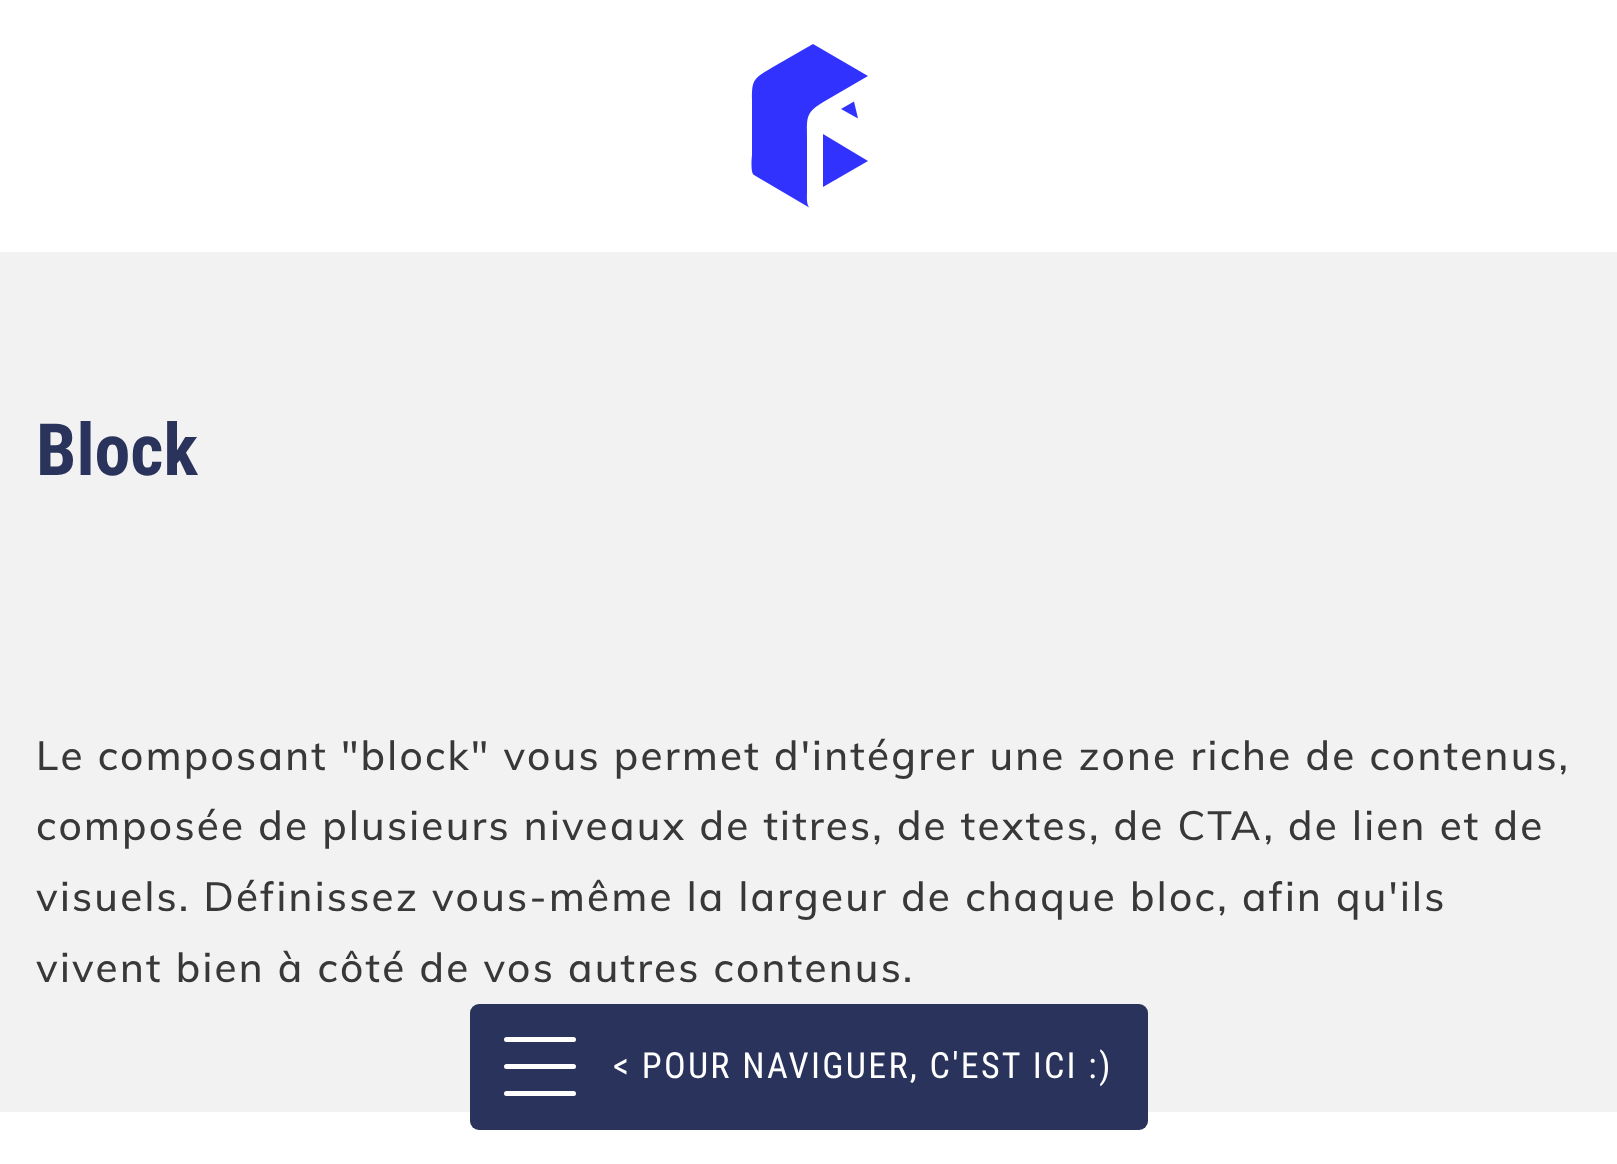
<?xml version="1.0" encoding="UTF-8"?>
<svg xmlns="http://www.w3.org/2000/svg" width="1617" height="1164">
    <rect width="100%" height="100%" fill="#F3F2F2"/>
    <text x="36" y="475" font-family="Roboto Condensed" font-size="72" font-weight="700" fill="#29335C">Block</text>
    <text font-family="Muli" font-size="40.5" font-weight="500" letter-spacing="2.25" fill="#383838">
        <tspan x="36" y="770">Le composant "block" vous permet d'intégrer une zone riche de contenus,</tspan>
        <tspan x="36" y="840">composée de plusieurs niveaux de titres, de textes, de CTA, de lien et de</tspan>
        <tspan x="36" y="911">visuels. Définissez vous-même la largeur de chaque bloc, afin qu'ils</tspan>
        <tspan x="36" y="982">vivent bien à côté de vos autres contenus.</tspan>
    </text>
    <rect x="0" y="0" width="1617" height="252" fill="#FFFFFF"/>
    <path d="M 854 101.5 L 841 109 L 858 118.5 Z" fill="#3232FF" fill-rule="evenodd"/>
    <path d="M 823 187 V 134 L 868 161 Z" fill="#3232FF" fill-rule="evenodd"/>
    <path d="M 868 76 L 825 101 C 805 113 807 116 807 141 V 192 C 807 195 806 206 810 208 L 754 175 C 750 173 752 155 752 155 V 105 C 752 80 751 80 773 67 L 813 44 Z" fill="#3232FF" fill-rule="evenodd"/>
    <rect x="0" y="1112" width="1617" height="52" fill="#FFFFFF"/>
    <rect x="470" y="1004" width="678" height="126" rx="9" fill="#29335B"/>
    <rect x="504" y="1091" width="72" height="5" rx="2.5" fill="#FFFFFF"/>
    <rect x="504" y="1037" width="72" height="5" rx="2.5" fill="#FFFFFF"/>
    <rect x="504" y="1064" width="72" height="5" rx="2.5" fill="#FFFFFF"/>
    <text x="613" y="1078" font-family="Roboto Condensed" font-size="36" letter-spacing="2.25" fill="#FFFFFF">&lt; POUR NAVIGUER, C'EST ICI :)</text>
</svg>
